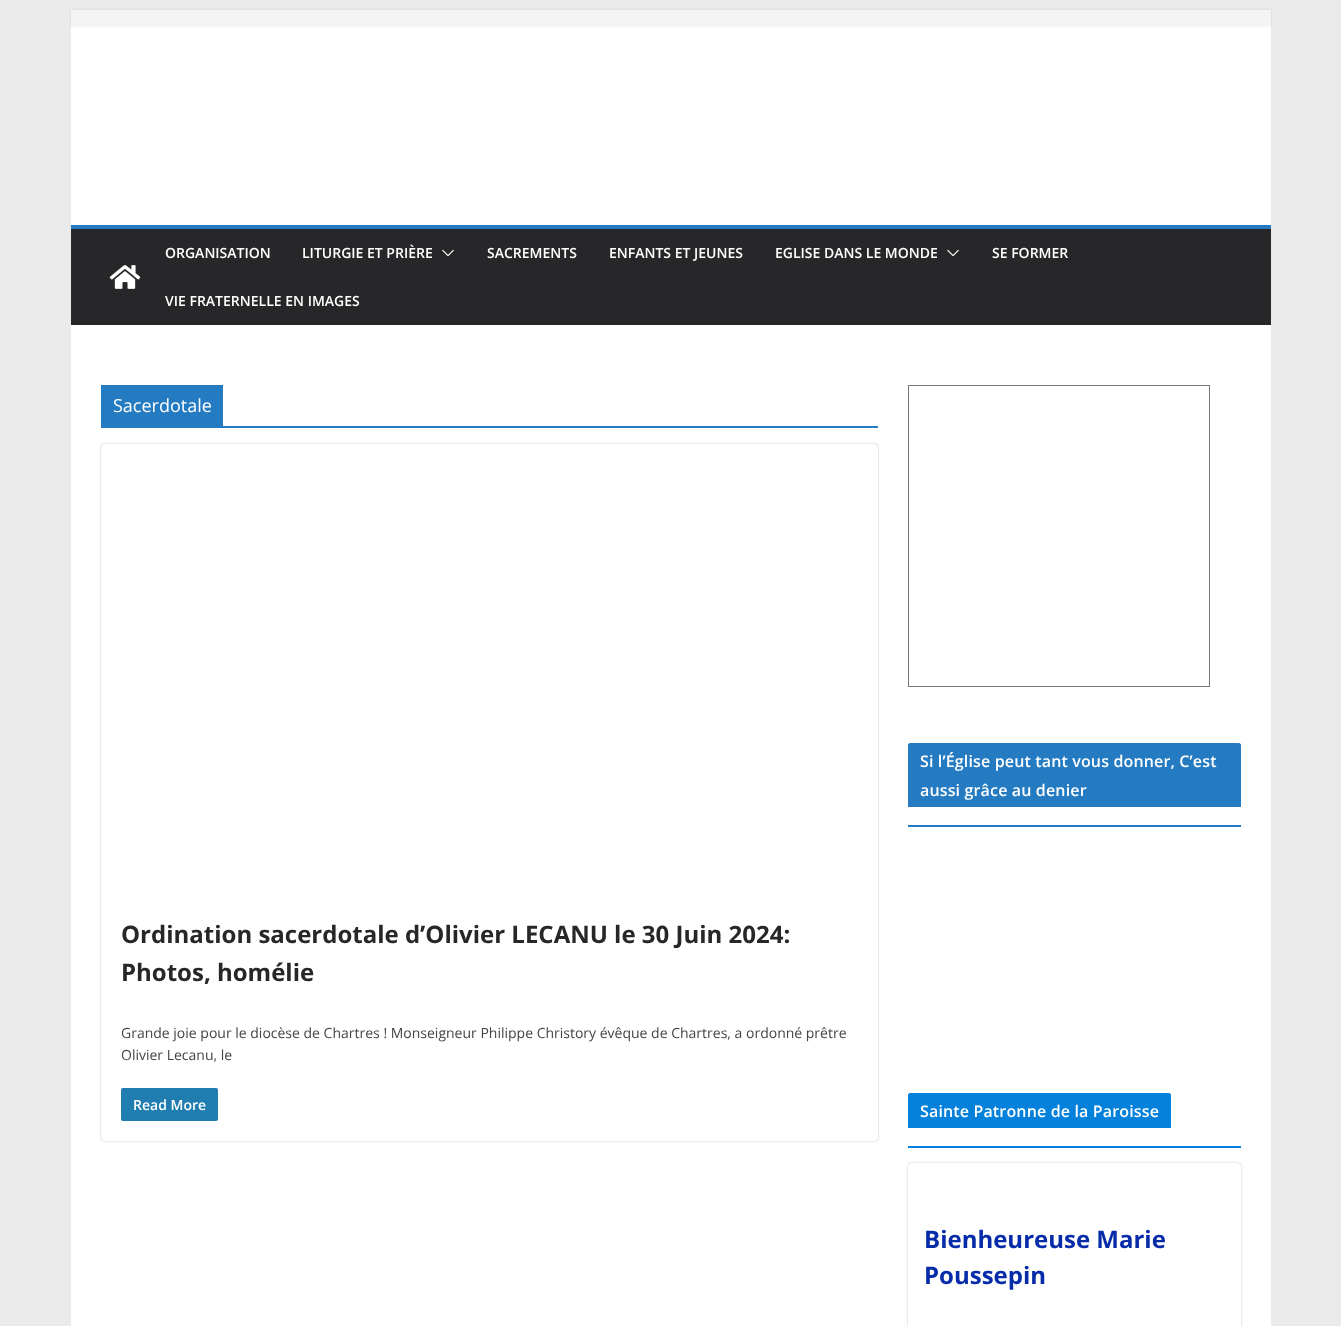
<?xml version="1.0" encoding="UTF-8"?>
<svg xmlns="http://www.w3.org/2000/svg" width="1341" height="1326">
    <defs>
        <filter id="blur1" x="-50%" y="-200%" width="200%" height="500%"><feGaussianBlur stdDeviation="1"/></filter>
        <clipPath id="clip1"><path d="M 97 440 H 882 V 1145 H 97 Z M 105 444 H 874 C 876 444 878 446 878 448 V 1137 C 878 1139 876 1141 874 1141 H 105 C 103 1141 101 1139 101 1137 V 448 C 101 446 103 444 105 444 Z" clip-rule="evenodd"/></clipPath>
        <clipPath id="clip2"><path d="M 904 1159 H 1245 V 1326 H 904 Z M 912 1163 H 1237 C 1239 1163 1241 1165 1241 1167 V 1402 C 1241 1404 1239 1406 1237 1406 H 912 C 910 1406 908 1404 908 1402 V 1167 C 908 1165 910 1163 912 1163 Z" clip-rule="evenodd"/></clipPath>
    </defs>
    <rect width="100%" height="100%" fill="#EAEAEA"/>
    <rect x="71" y="26" width="1200" height="199" fill="#FFFFFF"/>
    <rect x="71" y="10" width="1200" height="16" fill="#000000" fill-opacity="0.1" filter="url(#blur1)"/>
    <rect x="71" y="10" width="1200" height="16" fill="#F4F4F5"/>
    <rect x="71" y="229" width="1200" height="96" fill="#27272A"/>
    <rect x="71" y="225" width="1200" height="4" fill="#257BC1"/>
    <image x="109" y="265" width="32" height="24" href="img_01.png"/>
    <text x="165" y="258" font-family="Open Sans" font-size="14" font-weight="600" fill="#FFFFFF">ORGANISATION</text>
    <text x="302" y="258" font-family="Open Sans" font-size="14" font-weight="600" fill="#FFFFFF">LITURGIE ET PRIÈRE</text>
    <image x="442" y="249" width="12" height="8" href="img_02.png"/>
    <text x="487" y="258" font-family="Open Sans" font-size="14" font-weight="600" fill="#FFFFFF">SACREMENTS</text>
    <text x="609" y="258" font-family="Open Sans" font-size="14" font-weight="600" fill="#FFFFFF">ENFANTS ET JEUNES</text>
    <text x="775" y="258" font-family="Open Sans" font-size="14" font-weight="600" fill="#FFFFFF">EGLISE DANS LE MONDE</text>
    <image x="947" y="249" width="12" height="8" href="img_02.png"/>
    <text x="992" y="258" font-family="Open Sans" font-size="14" font-weight="600" fill="#FFFFFF">SE FORMER</text>
    <text x="165" y="306" font-family="Open Sans" font-size="14" font-weight="600" fill="#FFFFFF">VIE FRATERNELLE EN IMAGES</text>
    <rect x="71" y="325" width="1200" height="1001" fill="#FFFFFF"/>
    <rect x="101" y="426" width="777" height="2" fill="#257BC1"/>
    <rect x="101" y="385" width="122" height="41" fill="#257BC1"/>
    <text x="113" y="412" font-family="Open Sans" font-size="18" fill="#FFFFFF">Sacerdotale</text>
    <g clip-path="url(#clip1)">
        <rect x="101" y="444" width="777" height="697" rx="4" fill="#000000" fill-opacity="0.24" filter="url(#blur1)"/>
    </g>
    <text font-family="Open Sans" font-size="24" font-weight="700" fill="#27272A">
        <tspan x="121" y="943">Ordination sacerdotale d’Olivier LECANU le 30 Juin 2024:</tspan>
        <tspan x="121" y="981">Photos, homélie</tspan>
    </text>
    <text font-family="Open Sans" font-size="14" fill="#444444">
        <tspan x="121" y="1038">Grande joie pour le diocèse de Chartres ! Monseigneur Philippe Christory évêque de Chartres, a ordonné prêtre</tspan>
        <tspan x="121" y="1060">Olivier Lecanu, le</tspan>
    </text>
    <rect x="121" y="1088" width="97" height="33" rx="2" fill="#207DAF"/>
    <text x="133" y="1110" font-family="Open Sans" font-size="14" font-weight="600" fill="#FFFFFF">Read More</text>
    <rect x="908.5" y="385.5" width="301" height="301" fill="none" stroke="#777777"/>
    <rect x="908" y="825" width="333" height="2" fill="#257BC1"/>
    <path d="M 910 743 H 1239 C 1240 743 1241 744 1241 745 V 807 H 908 V 745 C 908 744 909 743 910 743 Z" fill="#257BC1"/>
    <text font-family="Open Sans" font-size="16" font-weight="600" letter-spacing="0.15" fill="#FFFFFF">
        <tspan x="920" y="767">Si l’Église peut tant vous donner, C’est</tspan>
        <tspan x="920" y="796">aussi grâce au denier</tspan>
    </text>
    <rect x="908" y="1146" width="333" height="2" fill="#0381DB"/>
    <path d="M 910 1093 H 1169 C 1170 1093 1171 1094 1171 1095 V 1128 H 908 V 1095 C 908 1094 909 1093 910 1093 Z" fill="#0381DB"/>
    <text x="920" y="1117" font-family="Open Sans" font-size="16" font-weight="600" letter-spacing="0.15" fill="#FFFFFF">Sainte Patronne de la Paroisse</text>
    <g clip-path="url(#clip2)">
        <rect x="908" y="1163" width="333" height="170" rx="4" fill="#000000" fill-opacity="0.24" filter="url(#blur1)"/>
    </g>
    <text font-family="Open Sans" font-size="24" font-weight="700" fill="#072CA9">
        <tspan x="924" y="1248">Bienheureuse Marie</tspan>
        <tspan x="924" y="1284">Poussepin</tspan>
    </text>
</svg>
